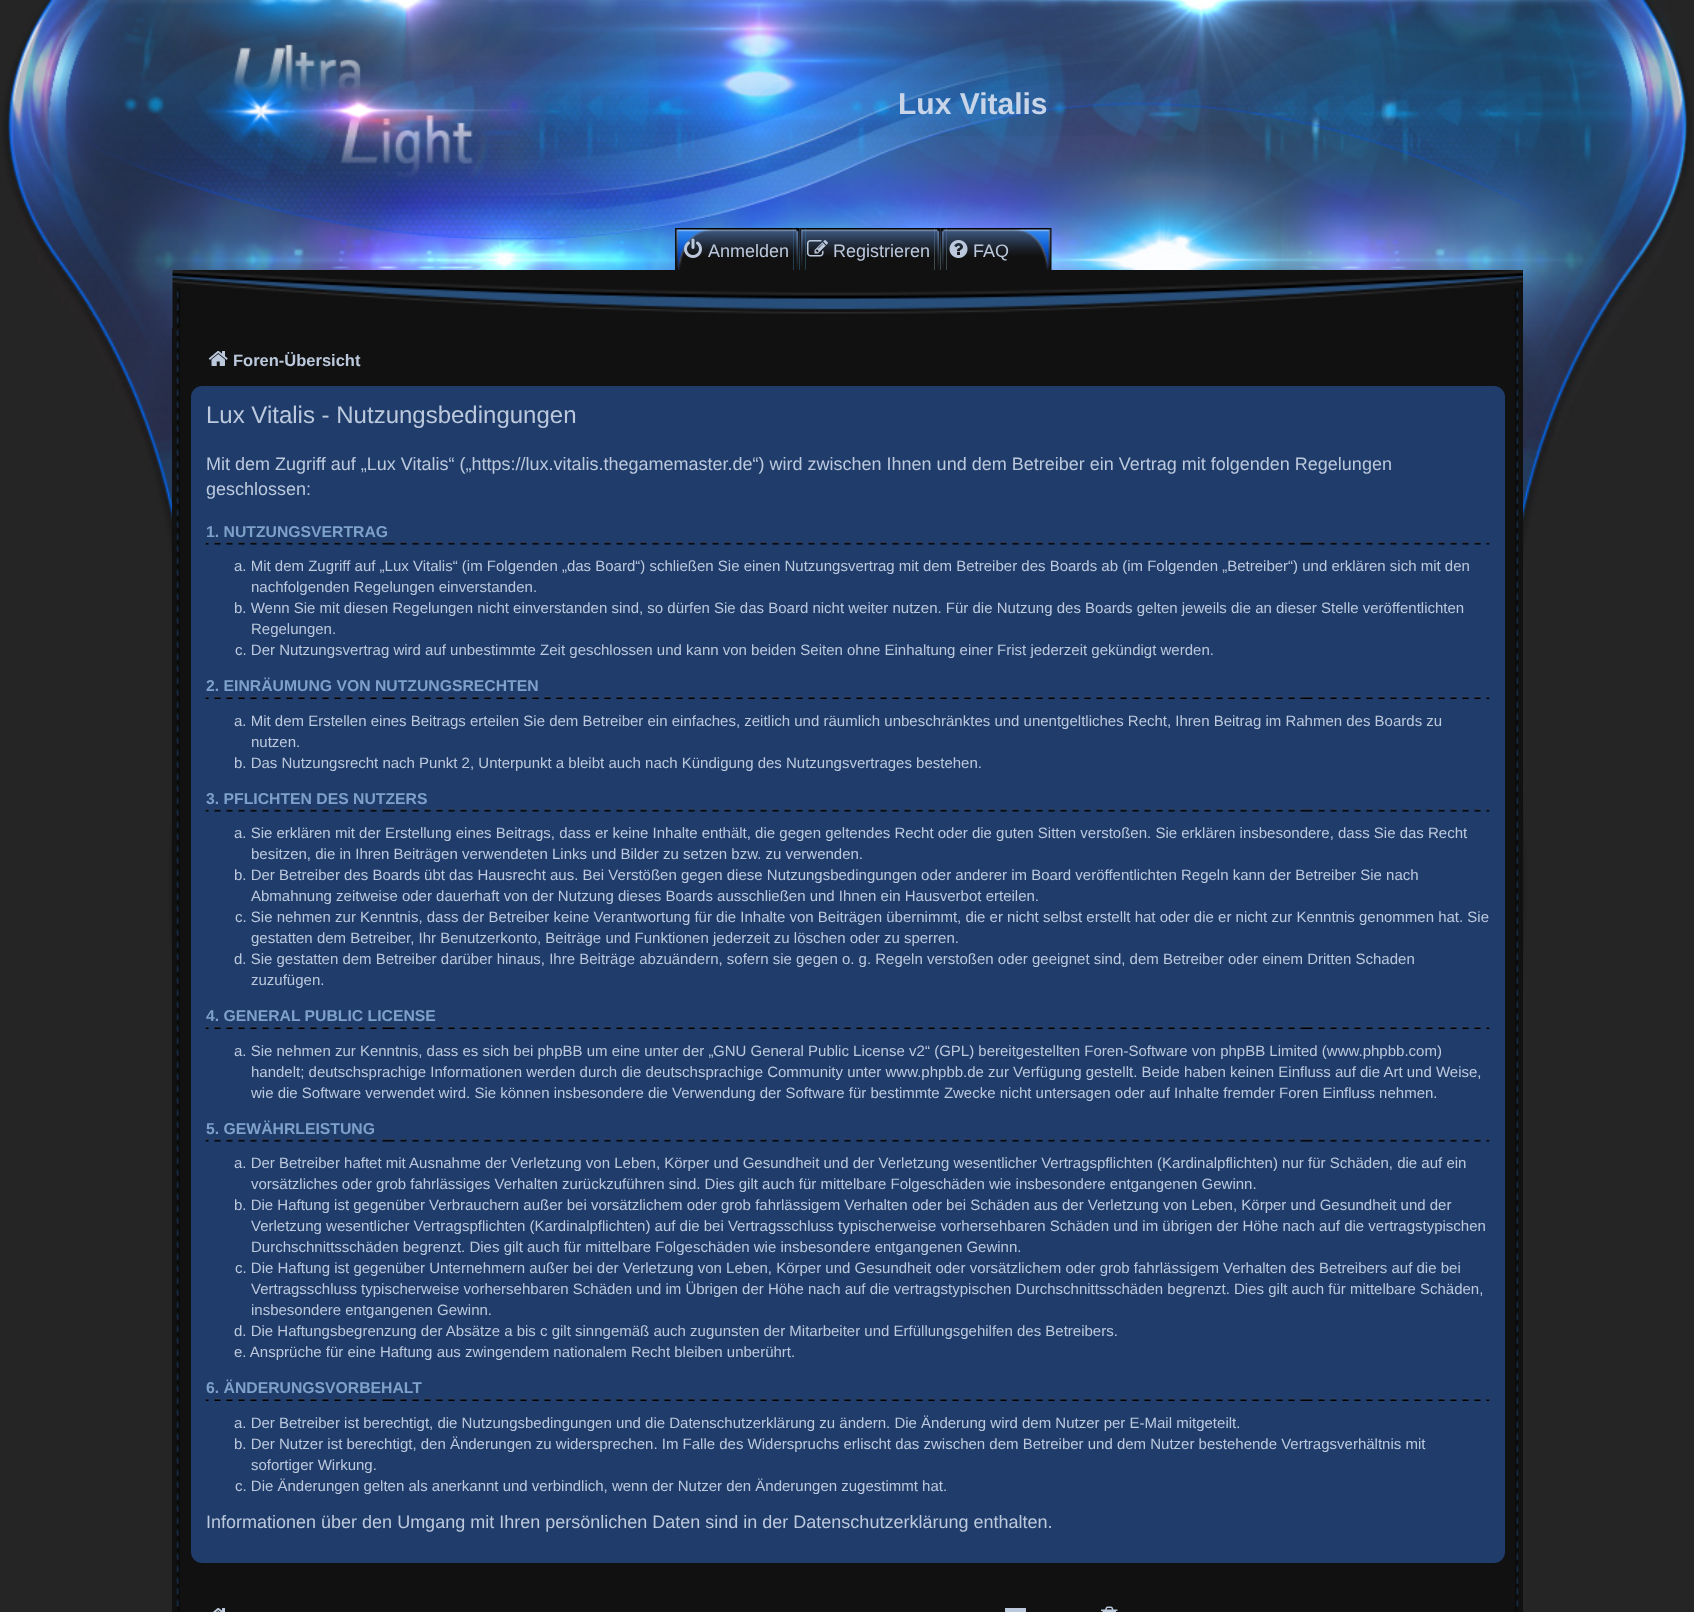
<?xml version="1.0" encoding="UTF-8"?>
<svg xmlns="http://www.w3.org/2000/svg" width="1694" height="1612">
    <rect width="100%" height="100%" fill="#252525"/>
    <image x="0" y="0" width="1693" height="1268" href="img_01.png"/>
    <image x="198" y="44" width="349" height="133" href="img_02.png"/>
    <text x="898" y="114" font-family="Liberation Sans" font-size="30" font-weight="700" fill="#C8D5E9">Lux Vitalis</text>
    <image x="712" y="228" width="82" height="42" href="img_03.png"/>
    <image x="675" y="228" width="37" height="42" href="img_04.png"/>
    <image x="684" y="238" width="18" height="20" href="img_05.png"/>
    <text x="708" y="257" font-family="Liberation Sans" font-size="18" fill="#BCC9DD">Anmelden</text>
    <image x="793" y="228" width="7" height="42" href="img_06.png"/>
    <image x="805" y="228" width="130" height="42" href="img_07.png"/>
    <image x="799" y="228" width="7" height="42" href="img_08.png"/>
    <image x="807" y="240" width="21" height="17" href="img_09.png"/>
    <text x="833" y="257" font-family="Liberation Sans" font-size="18" fill="#BCC9DD">Registrieren</text>
    <image x="934" y="228" width="7" height="42" href="img_10.png"/>
    <image x="946" y="228" width="68" height="42" href="img_11.png"/>
    <image x="940" y="228" width="7" height="42" href="img_12.png"/>
    <image x="949" y="240" width="19" height="18" href="img_13.png"/>
    <text x="973" y="257" font-family="Liberation Sans" font-size="18" fill="#BCC9DD">FAQ</text>
    <image x="1014" y="228" width="38" height="42" href="img_14.png"/>
    <rect x="1522" y="270" width="1" height="58" fill="#111111"/>
    <image x="172" y="270" width="1351" height="58" href="img_15.png"/>
    <rect x="172" y="328" width="1351" height="1284" fill="#111111"/>
    <image x="176" y="329" width="4" height="1258" href="img_16.png"/>
    <image x="208" y="351" width="20" height="15" href="img_17.png"/>
    <text x="233" y="366" font-family="Liberation Sans" font-size="16.5" font-weight="700" fill="#BCC9DD">Foren-Übersicht</text>
    <image x="1515" y="329" width="4" height="1258" href="img_18.png"/>
    <rect x="191" y="386" width="1314" height="1177" rx="11" fill="#1F3C6B"/>
    <text x="206" y="423" font-family="Liberation Sans" font-size="24" fill="#BCC9DD">Lux Vitalis - Nutzungsbedingungen</text>
    <text font-family="Liberation Sans" font-size="18" fill="#BCC9DD">
        <tspan x="206" y="470">Mit dem Zugriff auf „Lux Vitalis“ („https://lux.vitalis.thegamemaster.de“) wird zwischen Ihnen und dem Betreiber ein Vertrag mit folgenden Regelungen</tspan>
        <tspan x="206" y="495">geschlossen:</tspan>
    </text>
    <image x="205" y="541" width="1285" height="4" href="img_19.png"/>
    <text x="206" y="537" font-family="Liberation Sans" font-size="15.75" font-weight="700" fill="#7EA1C9">1. NUTZUNGSVERTRAG</text>
    <text x="234" y="571" font-family="Liberation Sans" font-size="15" fill="#BCC9DD">a. Mit dem Zugriff auf „Lux Vitalis“ (im Folgenden „das Board“) schließen Sie einen Nutzungsvertrag mit dem Betreiber des Boards ab (im Folgenden „Betreiber“) und erklären sich mit den</text>
    <text x="251" y="592" font-family="Liberation Sans" font-size="15" fill="#BCC9DD">nachfolgenden Regelungen einverstanden.</text>
    <text x="234" y="613" font-family="Liberation Sans" font-size="15" fill="#BCC9DD">b. Wenn Sie mit diesen Regelungen nicht einverstanden sind, so dürfen Sie das Board nicht weiter nutzen. Für die Nutzung des Boards gelten jeweils die an dieser Stelle veröffentlichten</text>
    <text x="251" y="634" font-family="Liberation Sans" font-size="15" fill="#BCC9DD">Regelungen.</text>
    <text x="235" y="655" font-family="Liberation Sans" font-size="15" fill="#BCC9DD">c. Der Nutzungsvertrag wird auf unbestimmte Zeit geschlossen und kann von beiden Seiten ohne Einhaltung einer Frist jederzeit gekündigt werden.</text>
    <image x="205" y="696" width="1285" height="3" href="img_20.png"/>
    <text x="206" y="691" font-family="Liberation Sans" font-size="15.75" font-weight="700" fill="#7EA1C9">2. EINRÄUMUNG VON NUTZUNGSRECHTEN</text>
    <text x="234" y="726" font-family="Liberation Sans" font-size="15" fill="#BCC9DD">a. Mit dem Erstellen eines Beitrags erteilen Sie dem Betreiber ein einfaches, zeitlich und räumlich unbeschränktes und unentgeltliches Recht, Ihren Beitrag im Rahmen des Boards zu</text>
    <text x="251" y="747" font-family="Liberation Sans" font-size="15" fill="#BCC9DD">nutzen.</text>
    <text x="234" y="768" font-family="Liberation Sans" font-size="15" fill="#BCC9DD">b. Das Nutzungsrecht nach Punkt 2, Unterpunkt a bleibt auch nach Kündigung des Nutzungsvertrages bestehen.</text>
    <image x="205" y="808" width="1285" height="4" href="img_19.png"/>
    <text x="206" y="804" font-family="Liberation Sans" font-size="15.75" font-weight="700" fill="#7EA1C9">3. PFLICHTEN DES NUTZERS</text>
    <text x="234" y="838" font-family="Liberation Sans" font-size="15" fill="#BCC9DD">a. Sie erklären mit der Erstellung eines Beitrags, dass er keine Inhalte enthält, die gegen geltendes Recht oder die guten Sitten verstoßen. Sie erklären insbesondere, dass Sie das Recht</text>
    <text x="251" y="859" font-family="Liberation Sans" font-size="15" fill="#BCC9DD">besitzen, die in Ihren Beiträgen verwendeten Links und Bilder zu setzen bzw. zu verwenden.</text>
    <text x="234" y="880" font-family="Liberation Sans" font-size="15" fill="#BCC9DD">b. Der Betreiber des Boards übt das Hausrecht aus. Bei Verstößen gegen diese Nutzungsbedingungen oder anderer im Board veröffentlichten Regeln kann der Betreiber Sie nach</text>
    <text x="251" y="901" font-family="Liberation Sans" font-size="15" fill="#BCC9DD">Abmahnung zeitweise oder dauerhaft von der Nutzung dieses Boards ausschließen und Ihnen ein Hausverbot erteilen.</text>
    <text x="235" y="922" font-family="Liberation Sans" font-size="15" fill="#BCC9DD">c. Sie nehmen zur Kenntnis, dass der Betreiber keine Verantwortung für die Inhalte von Beiträgen übernimmt, die er nicht selbst erstellt hat oder die er nicht zur Kenntnis genommen hat. Sie</text>
    <text x="251" y="943" font-family="Liberation Sans" font-size="15" fill="#BCC9DD">gestatten dem Betreiber, Ihr Benutzerkonto, Beiträge und Funktionen jederzeit zu löschen oder zu sperren.</text>
    <text x="234" y="964" font-family="Liberation Sans" font-size="15" fill="#BCC9DD">d. Sie gestatten dem Betreiber darüber hinaus, Ihre Beiträge abzuändern, sofern sie gegen o. g. Regeln verstoßen oder geeignet sind, dem Betreiber oder einem Dritten Schaden</text>
    <text x="251" y="985" font-family="Liberation Sans" font-size="15" fill="#BCC9DD">zuzufügen.</text>
    <image x="205" y="1026" width="1285" height="3" href="img_21.png"/>
    <text x="206" y="1021" font-family="Liberation Sans" font-size="15.75" font-weight="700" fill="#7EA1C9">4. GENERAL PUBLIC LICENSE</text>
    <text x="234" y="1056" font-family="Liberation Sans" font-size="15" fill="#BCC9DD">a. Sie nehmen zur Kenntnis, dass es sich bei phpBB um eine unter der „</text>
    <text x="713" y="1056" font-family="Liberation Sans" font-size="15" fill="#BCC9DD">GNU General Public License v2</text>
    <text x="925" y="1056" font-family="Liberation Sans" font-size="15" fill="#BCC9DD">“ (GPL) bereitgestellten Foren-Software von phpBB Limited (www.phpbb.com)</text>
    <text font-family="Liberation Sans" font-size="15" fill="#BCC9DD">
        <tspan x="251" y="1077">handelt; deutschsprachige Informationen werden durch die deutschsprachige Community unter www.phpbb.de zur Verfügung gestellt. Beide haben keinen Einfluss auf die Art und Weise,</tspan>
        <tspan x="251" y="1098">wie die Software verwendet wird. Sie können insbesondere die Verwendung der Software für bestimmte Zwecke nicht untersagen oder auf Inhalte fremder Foren Einfluss nehmen.</tspan>
    </text>
    <image x="205" y="1138" width="1285" height="4" href="img_19.png"/>
    <text x="206" y="1134" font-family="Liberation Sans" font-size="15.75" font-weight="700" fill="#7EA1C9">5. GEWÄHRLEISTUNG</text>
    <text x="234" y="1168" font-family="Liberation Sans" font-size="15" fill="#BCC9DD">a. Der Betreiber haftet mit Ausnahme der Verletzung von Leben, Körper und Gesundheit und der Verletzung wesentlicher Vertragspflichten (Kardinalpflichten) nur für Schäden, die auf ein</text>
    <text x="251" y="1189" font-family="Liberation Sans" font-size="15" fill="#BCC9DD">vorsätzliches oder grob fahrlässiges Verhalten zurückzuführen sind. Dies gilt auch für mittelbare Folgeschäden wie insbesondere entgangenen Gewinn.</text>
    <text x="234" y="1210" font-family="Liberation Sans" font-size="15" fill="#BCC9DD">b. Die Haftung ist gegenüber Verbrauchern außer bei vorsätzlichem oder grob fahrlässigem Verhalten oder bei Schäden aus der Verletzung von Leben, Körper und Gesundheit und der</text>
    <text font-family="Liberation Sans" font-size="15" fill="#BCC9DD">
        <tspan x="251" y="1231">Verletzung wesentlicher Vertragspflichten (Kardinalpflichten) auf die bei Vertragsschluss typischerweise vorhersehbaren Schäden und im übrigen der Höhe nach auf die vertragstypischen</tspan>
        <tspan x="251" y="1252">Durchschnittsschäden begrenzt. Dies gilt auch für mittelbare Folgeschäden wie insbesondere entgangenen Gewinn.</tspan>
    </text>
    <text x="235" y="1273" font-family="Liberation Sans" font-size="15" fill="#BCC9DD">c. Die Haftung ist gegenüber Unternehmern außer bei der Verletzung von Leben, Körper und Gesundheit oder vorsätzlichem oder grob fahrlässigem Verhalten des Betreibers auf die bei</text>
    <text font-family="Liberation Sans" font-size="15" fill="#BCC9DD">
        <tspan x="251" y="1294">Vertragsschluss typischerweise vorhersehbaren Schäden und im Übrigen der Höhe nach auf die vertragstypischen Durchschnittsschäden begrenzt. Dies gilt auch für mittelbare Schäden,</tspan>
        <tspan x="251" y="1315">insbesondere entgangenen Gewinn.</tspan>
    </text>
    <text font-family="Liberation Sans" font-size="15" fill="#BCC9DD">
        <tspan x="234" y="1336">d. Die Haftungsbegrenzung der Absätze a bis c gilt sinngemäß auch zugunsten der Mitarbeiter und Erfüllungsgehilfen des Betreibers.</tspan>
        <tspan x="234" y="1357">e. Ansprüche für eine Haftung aus zwingendem nationalem Recht bleiben unberührt.</tspan>
    </text>
    <image x="205" y="1398" width="1285" height="3" href="img_21.png"/>
    <text x="206" y="1393" font-family="Liberation Sans" font-size="15.75" font-weight="700" fill="#7EA1C9">6. ÄNDERUNGSVORBEHALT</text>
    <text font-family="Liberation Sans" font-size="15" fill="#BCC9DD">
        <tspan x="234" y="1428">a. Der Betreiber ist berechtigt, die Nutzungsbedingungen und die Datenschutzerklärung zu ändern. Die Änderung wird dem Nutzer per E-Mail mitgeteilt.</tspan>
        <tspan x="234" y="1449">b. Der Nutzer ist berechtigt, den Änderungen zu widersprechen. Im Falle des Widerspruchs erlischt das zwischen dem Betreiber und dem Nutzer bestehende Vertragsverhältnis mit</tspan>
    </text>
    <text x="251" y="1470" font-family="Liberation Sans" font-size="15" fill="#BCC9DD">sofortiger Wirkung.</text>
    <text x="235" y="1491" font-family="Liberation Sans" font-size="15" fill="#BCC9DD">c. Die Änderungen gelten als anerkannt und verbindlich, wenn der Nutzer den Änderungen zugestimmt hat.</text>
    <text x="206" y="1528" font-family="Liberation Sans" font-size="18" fill="#BCC9DD">Informationen über den Umgang mit Ihren persönlichen Daten sind in der Datenschutzerklärung enthalten.</text>
    <image x="176" y="1587" width="4" height="25" href="img_22.png"/>
    <image x="213" y="1608" width="12" height="4" href="img_23.png"/>
    <rect x="1005" y="1608" width="21" height="4" fill="#BCC9DD"/>
    <image x="1101" y="1606" width="17" height="6" href="img_24.png"/>
    <image x="1515" y="1587" width="4" height="25" href="img_25.png"/>
</svg>
